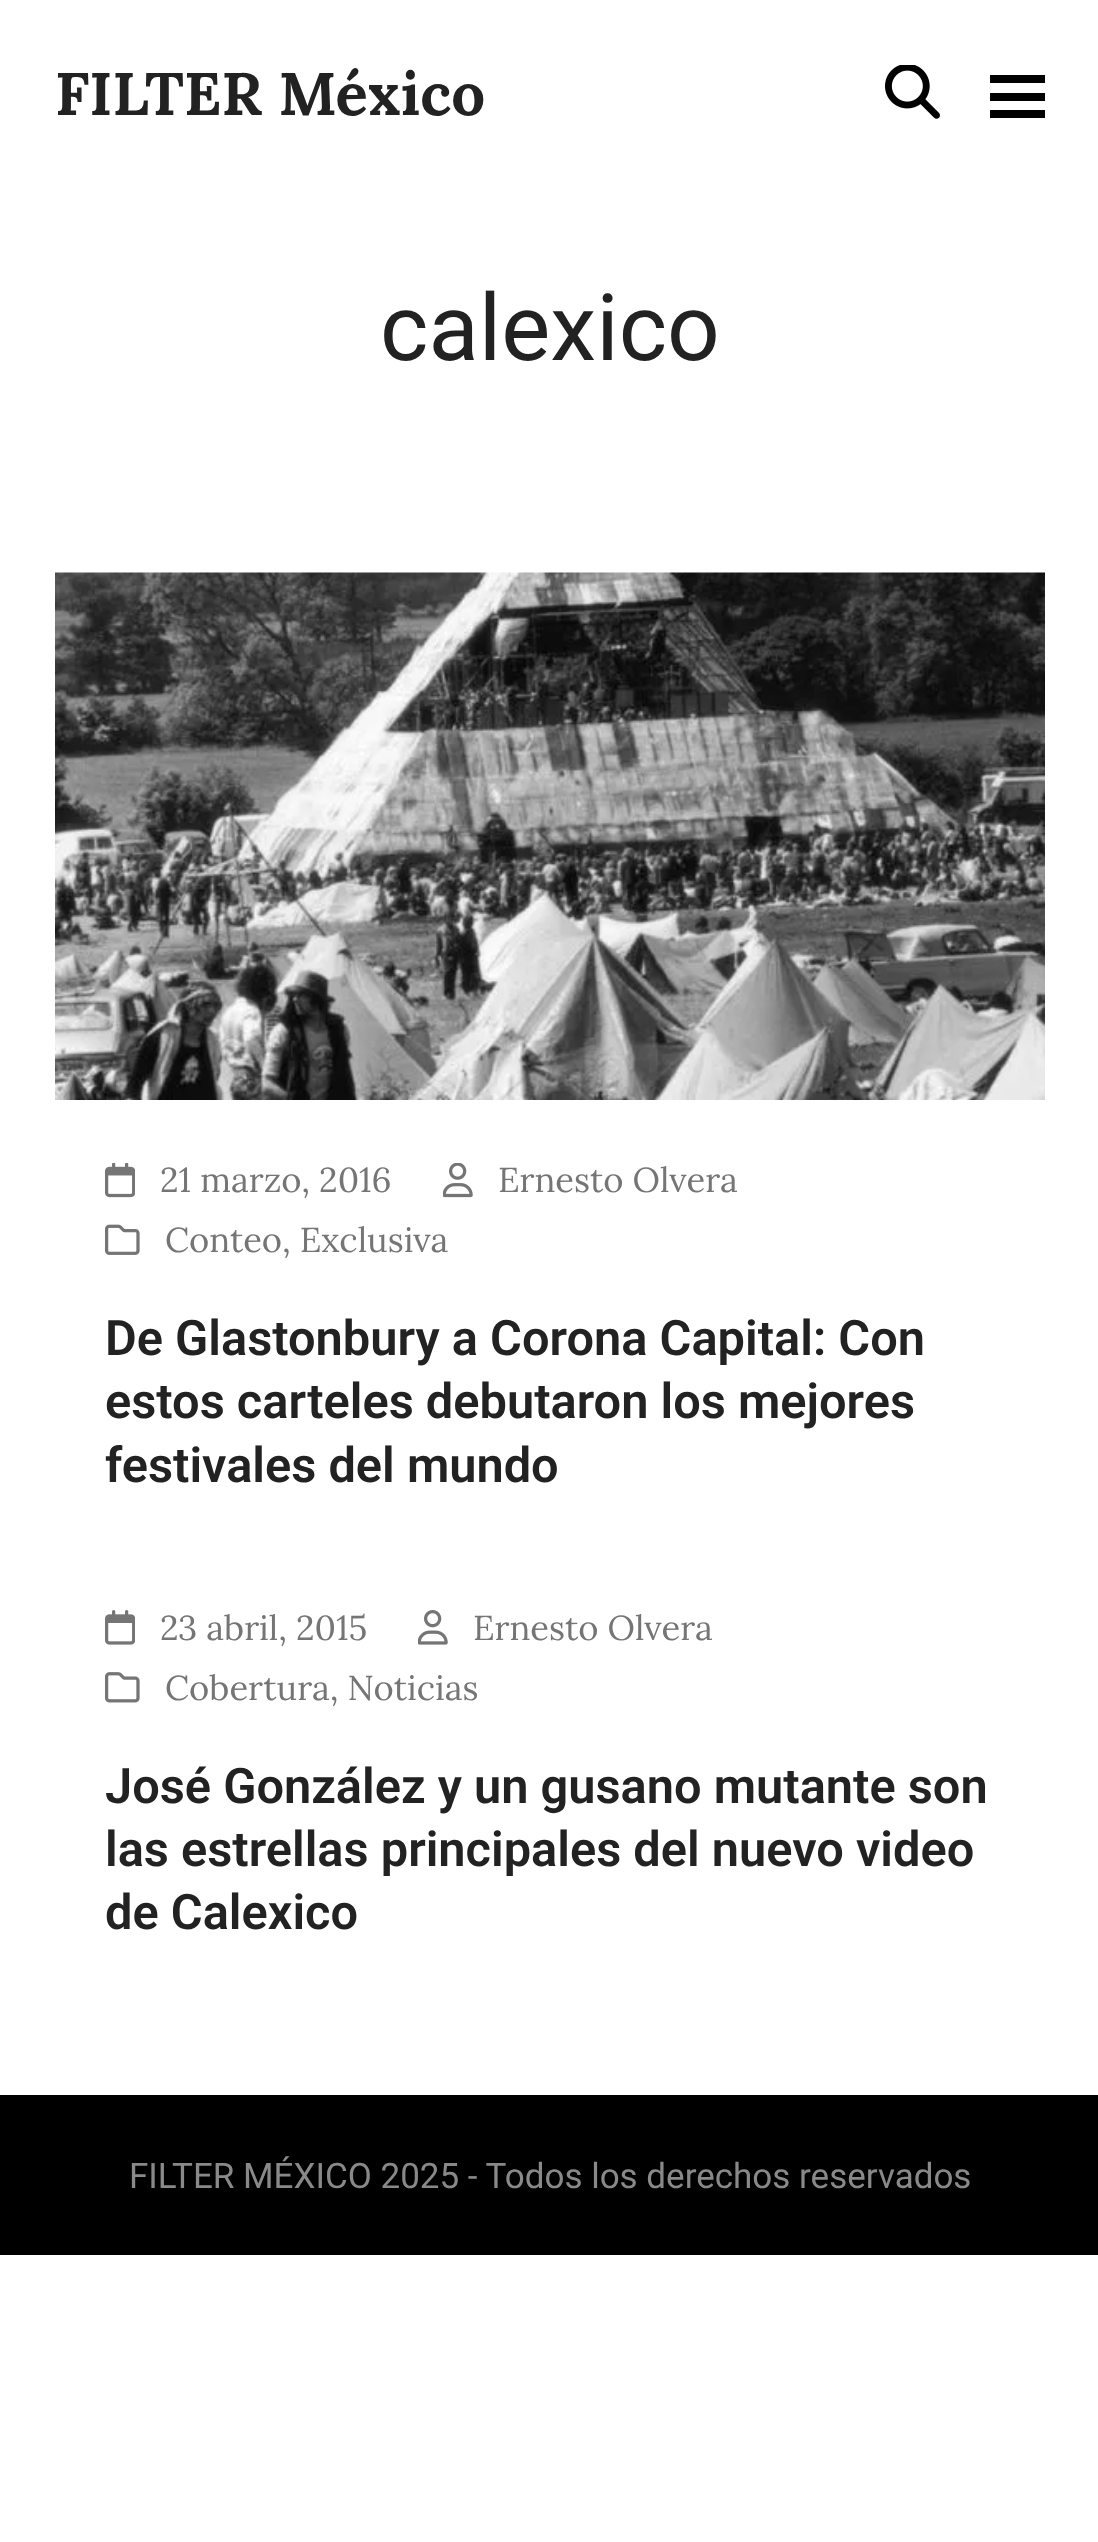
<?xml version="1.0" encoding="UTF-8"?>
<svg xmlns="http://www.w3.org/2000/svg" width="1098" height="2542">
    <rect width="100%" height="100%" fill="#FFFFFF"/>
    <text x="55" y="115" font-family="Lora" font-size="60" font-weight="700" fill="#222222">FILTER México</text>
    <image x="885" y="65" width="55" height="54" href="img_01.png"/>
    <rect x="990" y="93" width="55" height="8" fill="#000000"/>
    <rect x="990" y="75" width="55" height="8" fill="#000000"/>
    <rect x="990" y="110" width="55" height="8" fill="#000000"/>
    <text x="380" y="360" font-family="Roboto" font-size="92.5" fill="#222222">calexico</text>
    <image x="55" y="572" width="990" height="528" href="img_02.png"/>
    <image x="105" y="1163" width="30" height="35" href="img_03.png"/>
    <text x="160" y="1192" font-family="Lora" font-size="34.5" fill="#757575">21 marzo, 2016</text>
    <image x="443" y="1163" width="30" height="35" href="img_04.png"/>
    <text x="498" y="1192" font-family="Lora" font-size="34.5" fill="#757575">Ernesto Olvera</text>
    <image x="105" y="1224" width="35" height="31" href="img_05.png"/>
    <text x="165" y="1252" font-family="Lora" font-size="34.5" fill="#757575">Conteo, Exclusiva</text>
    <text font-family="Roboto" font-size="48.75" font-weight="600" fill="#222222">
        <tspan x="105" y="1355">De Glastonbury a Corona Capital: Con</tspan>
        <tspan x="105" y="1418">estos carteles debutaron los mejores</tspan>
        <tspan x="105" y="1482">festivales del mundo</tspan>
    </text>
    <image x="105" y="1610" width="30" height="35" href="img_06.png"/>
    <text x="160" y="1640" font-family="Lora" font-size="34.5" fill="#757575">23 abril, 2015</text>
    <image x="418" y="1610" width="30" height="35" href="img_07.png"/>
    <text x="473" y="1640" font-family="Lora" font-size="34.5" fill="#757575">Ernesto Olvera</text>
    <image x="105" y="1672" width="35" height="31" href="img_08.png"/>
    <text x="165" y="1700" font-family="Lora" font-size="34.5" fill="#757575">Cobertura, Noticias</text>
    <text font-family="Roboto" font-size="48.75" font-weight="600" fill="#222222">
        <tspan x="105" y="1803">José González y un gusano mutante son</tspan>
        <tspan x="105" y="1866">las estrellas principales del nuevo video</tspan>
        <tspan x="105" y="1929">de Calexico</tspan>
    </text>
    <rect x="0" y="2095" width="1098" height="160" fill="#000000"/>
    <text x="129" y="2188" font-family="Roboto" font-size="35" fill="#898989">FILTER MÉXICO 2025 - Todos los derechos reservados</text>
</svg>
